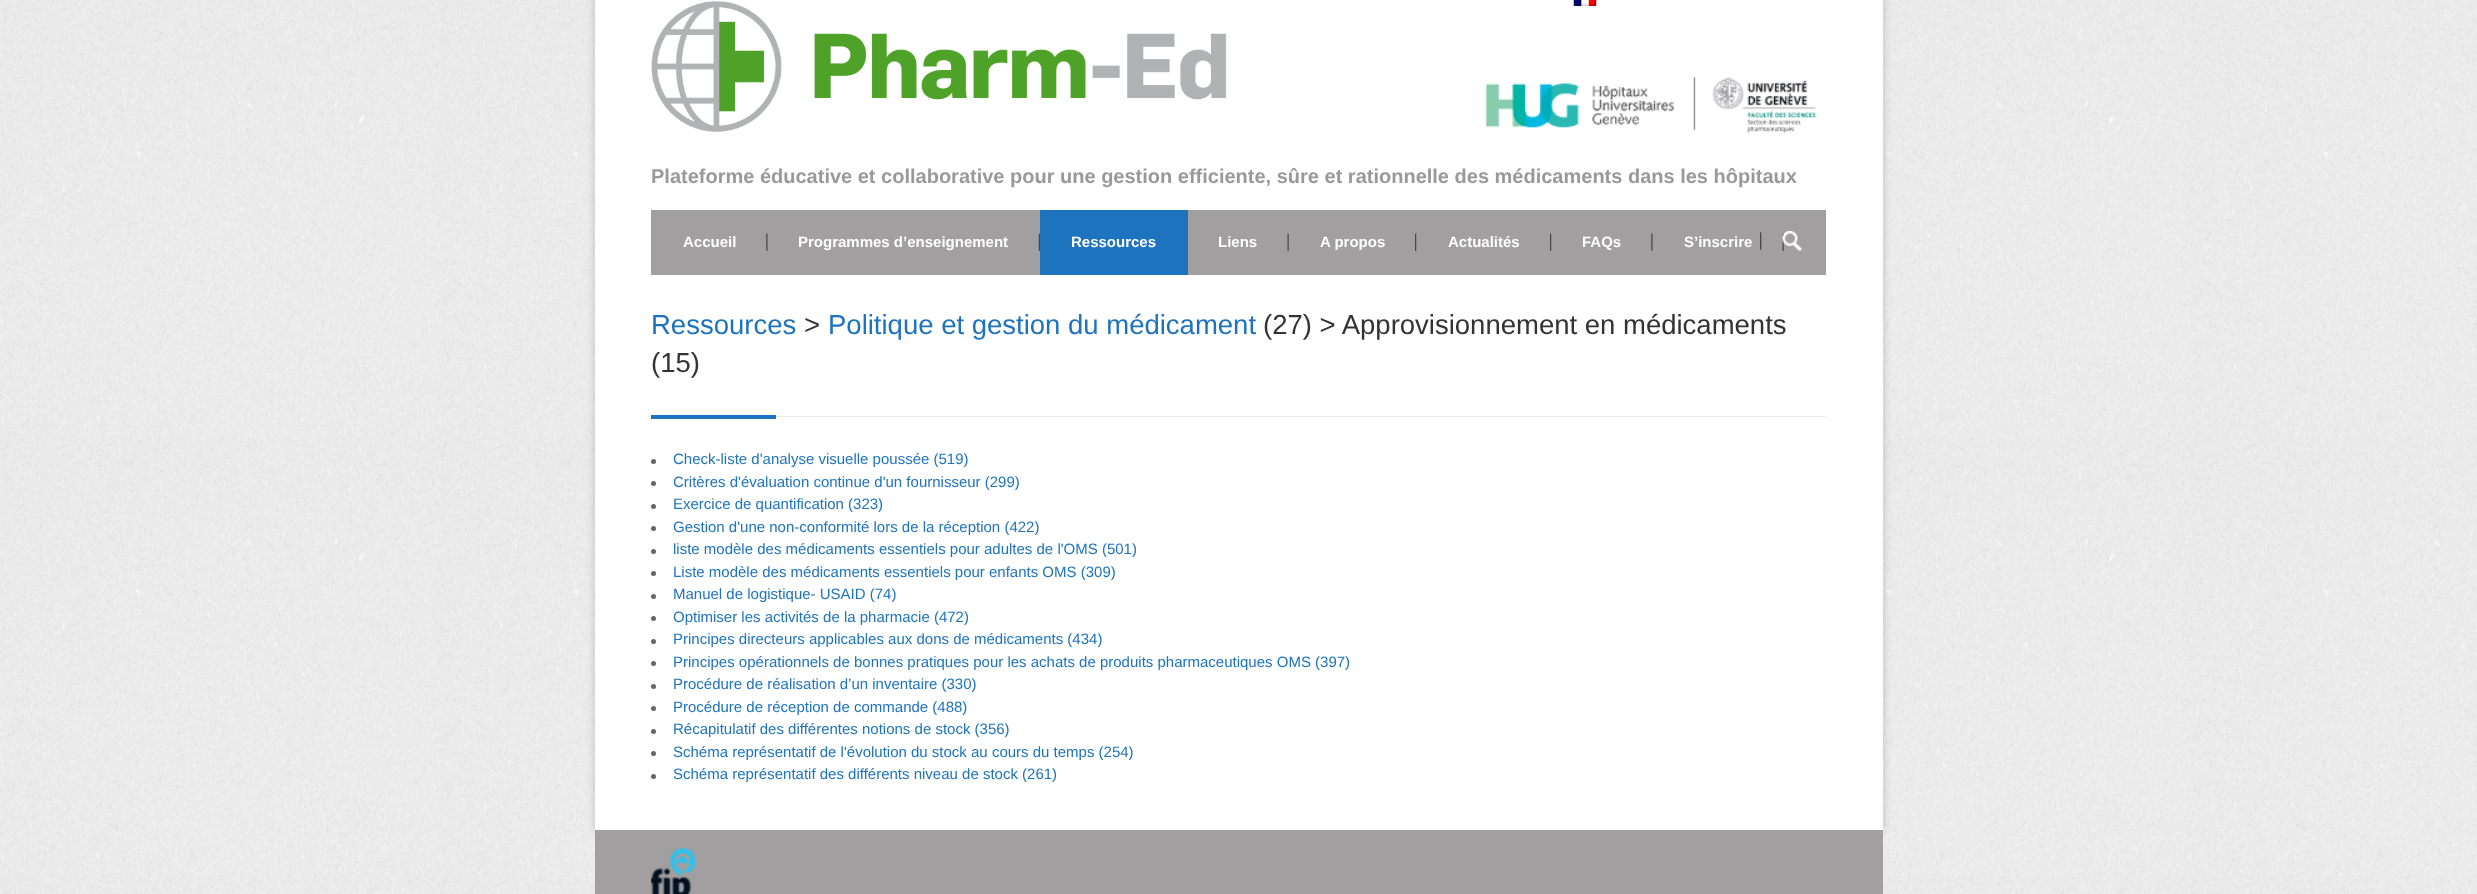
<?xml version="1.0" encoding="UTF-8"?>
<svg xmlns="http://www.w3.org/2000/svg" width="2477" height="894">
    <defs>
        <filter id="blur1" x="-50%" y="-200%" width="200%" height="500%"><feGaussianBlur stdDeviation="4"/></filter>
    </defs>
    <rect width="100%" height="100%" fill="#FFFFFF"/>
    <image x="0" y="0" width="2477" height="894" href="img_01.png"/>
    <rect x="595" y="-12" width="1288" height="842" fill="#000000" fill-opacity="0.2" filter="url(#blur1)"/>
    <rect x="595" y="0" width="1288" height="830" fill="#FFFFFF"/>
    <image x="1486" y="77" width="331" height="57" href="img_02.png"/>
    <image x="651" y="1" width="576" height="131" href="img_03.png"/>
    <image x="1573" y="0" width="24" height="6" href="img_04.png"/>
    <text x="651" y="183" font-family="Liberation Sans" font-size="20" font-weight="700" fill="#999999">Plateforme éducative et collaborative pour une gestion efficiente, sûre et rationnelle des médicaments dans les hôpitaux</text>
    <rect x="651" y="210" width="1175" height="65" fill="#A19F9F"/>
    <image x="766" y="233" width="2" height="18" href="img_05.png"/>
    <text x="683" y="247" font-family="Liberation Sans" font-size="15" font-weight="700" fill="#FFFFFF">Accueil</text>
    <image x="1038" y="233" width="2" height="18" href="img_06.png"/>
    <text x="798" y="247" font-family="Liberation Sans" font-size="15" font-weight="700" fill="#FFFFFF">Programmes d’enseignement</text>
    <rect x="1040" y="210" width="148" height="65" fill="#1E73BE"/>
    <text x="1071" y="247" font-family="Liberation Sans" font-size="15" font-weight="700" fill="#FFFFFF">Ressources</text>
    <image x="1287" y="233" width="2" height="18" href="img_07.png"/>
    <text x="1218" y="247" font-family="Liberation Sans" font-size="15" font-weight="700" fill="#FFFFFF">Liens</text>
    <image x="1415" y="233" width="2" height="18" href="img_08.png"/>
    <text x="1320" y="247" font-family="Liberation Sans" font-size="15" font-weight="700" fill="#FFFFFF">A propos</text>
    <image x="1550" y="233" width="2" height="18" href="img_08.png"/>
    <text x="1448" y="247" font-family="Liberation Sans" font-size="15" font-weight="700" fill="#FFFFFF">Actualités</text>
    <image x="1651" y="233" width="2" height="18" href="img_05.png"/>
    <text x="1582" y="247" font-family="Liberation Sans" font-size="15" font-weight="700" fill="#FFFFFF">FAQs</text>
    <image x="1782" y="233" width="2" height="18" href="img_07.png"/>
    <text x="1684" y="247" font-family="Liberation Sans" font-size="15" font-weight="700" fill="#FFFFFF">S’inscrire</text>
    <image x="1760" y="231" width="43" height="20" href="img_09.png"/>
    <rect x="776" y="416" width="1050" height="1" fill="#E9E9E9"/>
    <text x="651" y="334" font-family="Liberation Sans" font-size="27.5" fill="#1E73BE">Ressources</text>
    <text x="804" y="334" font-family="Liberation Sans" font-size="27.5" fill="#333333">&gt;</text>
    <text x="828" y="334" font-family="Liberation Sans" font-size="27.5" fill="#1E73BE">Politique et gestion du médicament</text>
    <text x="1263" y="334" font-family="Liberation Sans" font-size="27.5" fill="#333333">(27) &gt; Approvisionnement en médicaments</text>
    <text x="651" y="372" font-family="Liberation Sans" font-size="27.5" fill="#333333">(15)</text>
    <rect x="651" y="415" width="125" height="4" fill="#1E73BE"/>
    <circle cx="653.5" cy="461.5" r="2.5" fill="#666666"/>
    <text x="673" y="464" font-family="Liberation Sans" font-size="15" fill="#1E73BE">Check-liste d'analyse visuelle poussée (519)</text>
    <circle cx="653.5" cy="483.5" r="2.5" fill="#666666"/>
    <text x="673" y="487" font-family="Liberation Sans" font-size="15" fill="#1E73BE">Critères d'évaluation continue d'un fournisseur (299)</text>
    <circle cx="653.5" cy="506.5" r="2.5" fill="#666666"/>
    <text x="673" y="509" font-family="Liberation Sans" font-size="15" fill="#1E73BE">Exercice de quantification (323)</text>
    <circle cx="653.5" cy="528.5" r="2.5" fill="#666666"/>
    <text x="673" y="532" font-family="Liberation Sans" font-size="15" fill="#1E73BE">Gestion d'une non-conformité lors de la réception (422)</text>
    <circle cx="653.5" cy="551.5" r="2.5" fill="#666666"/>
    <text x="673" y="554" font-family="Liberation Sans" font-size="15" fill="#1E73BE">liste modèle des médicaments essentiels pour adultes de l'OMS (501)</text>
    <circle cx="653.5" cy="573.5" r="2.5" fill="#666666"/>
    <text x="673" y="577" font-family="Liberation Sans" font-size="15" fill="#1E73BE">Liste modèle des médicaments essentiels pour enfants OMS (309)</text>
    <circle cx="653.5" cy="596.5" r="2.5" fill="#666666"/>
    <text x="673" y="599" font-family="Liberation Sans" font-size="15" fill="#1E73BE">Manuel de logistique- USAID (74)</text>
    <circle cx="653.5" cy="618.5" r="2.5" fill="#666666"/>
    <text x="673" y="622" font-family="Liberation Sans" font-size="15" fill="#1E73BE">Optimiser les activités de la pharmacie (472)</text>
    <circle cx="653.5" cy="641.5" r="2.5" fill="#666666"/>
    <text x="673" y="644" font-family="Liberation Sans" font-size="15" fill="#1E73BE">Principes directeurs applicables aux dons de médicaments (434)</text>
    <circle cx="653.5" cy="663.5" r="2.5" fill="#666666"/>
    <text x="673" y="667" font-family="Liberation Sans" font-size="15" fill="#1E73BE">Principes opérationnels de bonnes pratiques pour les achats de produits pharmaceutiques OMS (397)</text>
    <circle cx="653.5" cy="686.5" r="2.5" fill="#666666"/>
    <text x="673" y="689" font-family="Liberation Sans" font-size="15" fill="#1E73BE">Procédure de réalisation d’un inventaire (330)</text>
    <circle cx="653.5" cy="708.5" r="2.5" fill="#666666"/>
    <text x="673" y="712" font-family="Liberation Sans" font-size="15" fill="#1E73BE">Procédure de réception de commande (488)</text>
    <circle cx="653.5" cy="731.5" r="2.5" fill="#666666"/>
    <text x="673" y="734" font-family="Liberation Sans" font-size="15" fill="#1E73BE">Récapitulatif des différentes notions de stock (356)</text>
    <circle cx="653.5" cy="753.5" r="2.5" fill="#666666"/>
    <text x="673" y="757" font-family="Liberation Sans" font-size="15" fill="#1E73BE">Schéma représentatif de l'évolution du stock au cours du temps (254)</text>
    <circle cx="653.5" cy="776.5" r="2.5" fill="#666666"/>
    <text x="673" y="779" font-family="Liberation Sans" font-size="15" fill="#1E73BE">Schéma représentatif des différents niveau de stock (261)</text>
    <rect x="595" y="830" width="1288" height="64" fill="#A19F9F"/>
    <image x="651" y="848" width="44" height="46" href="img_10.png"/>
</svg>
